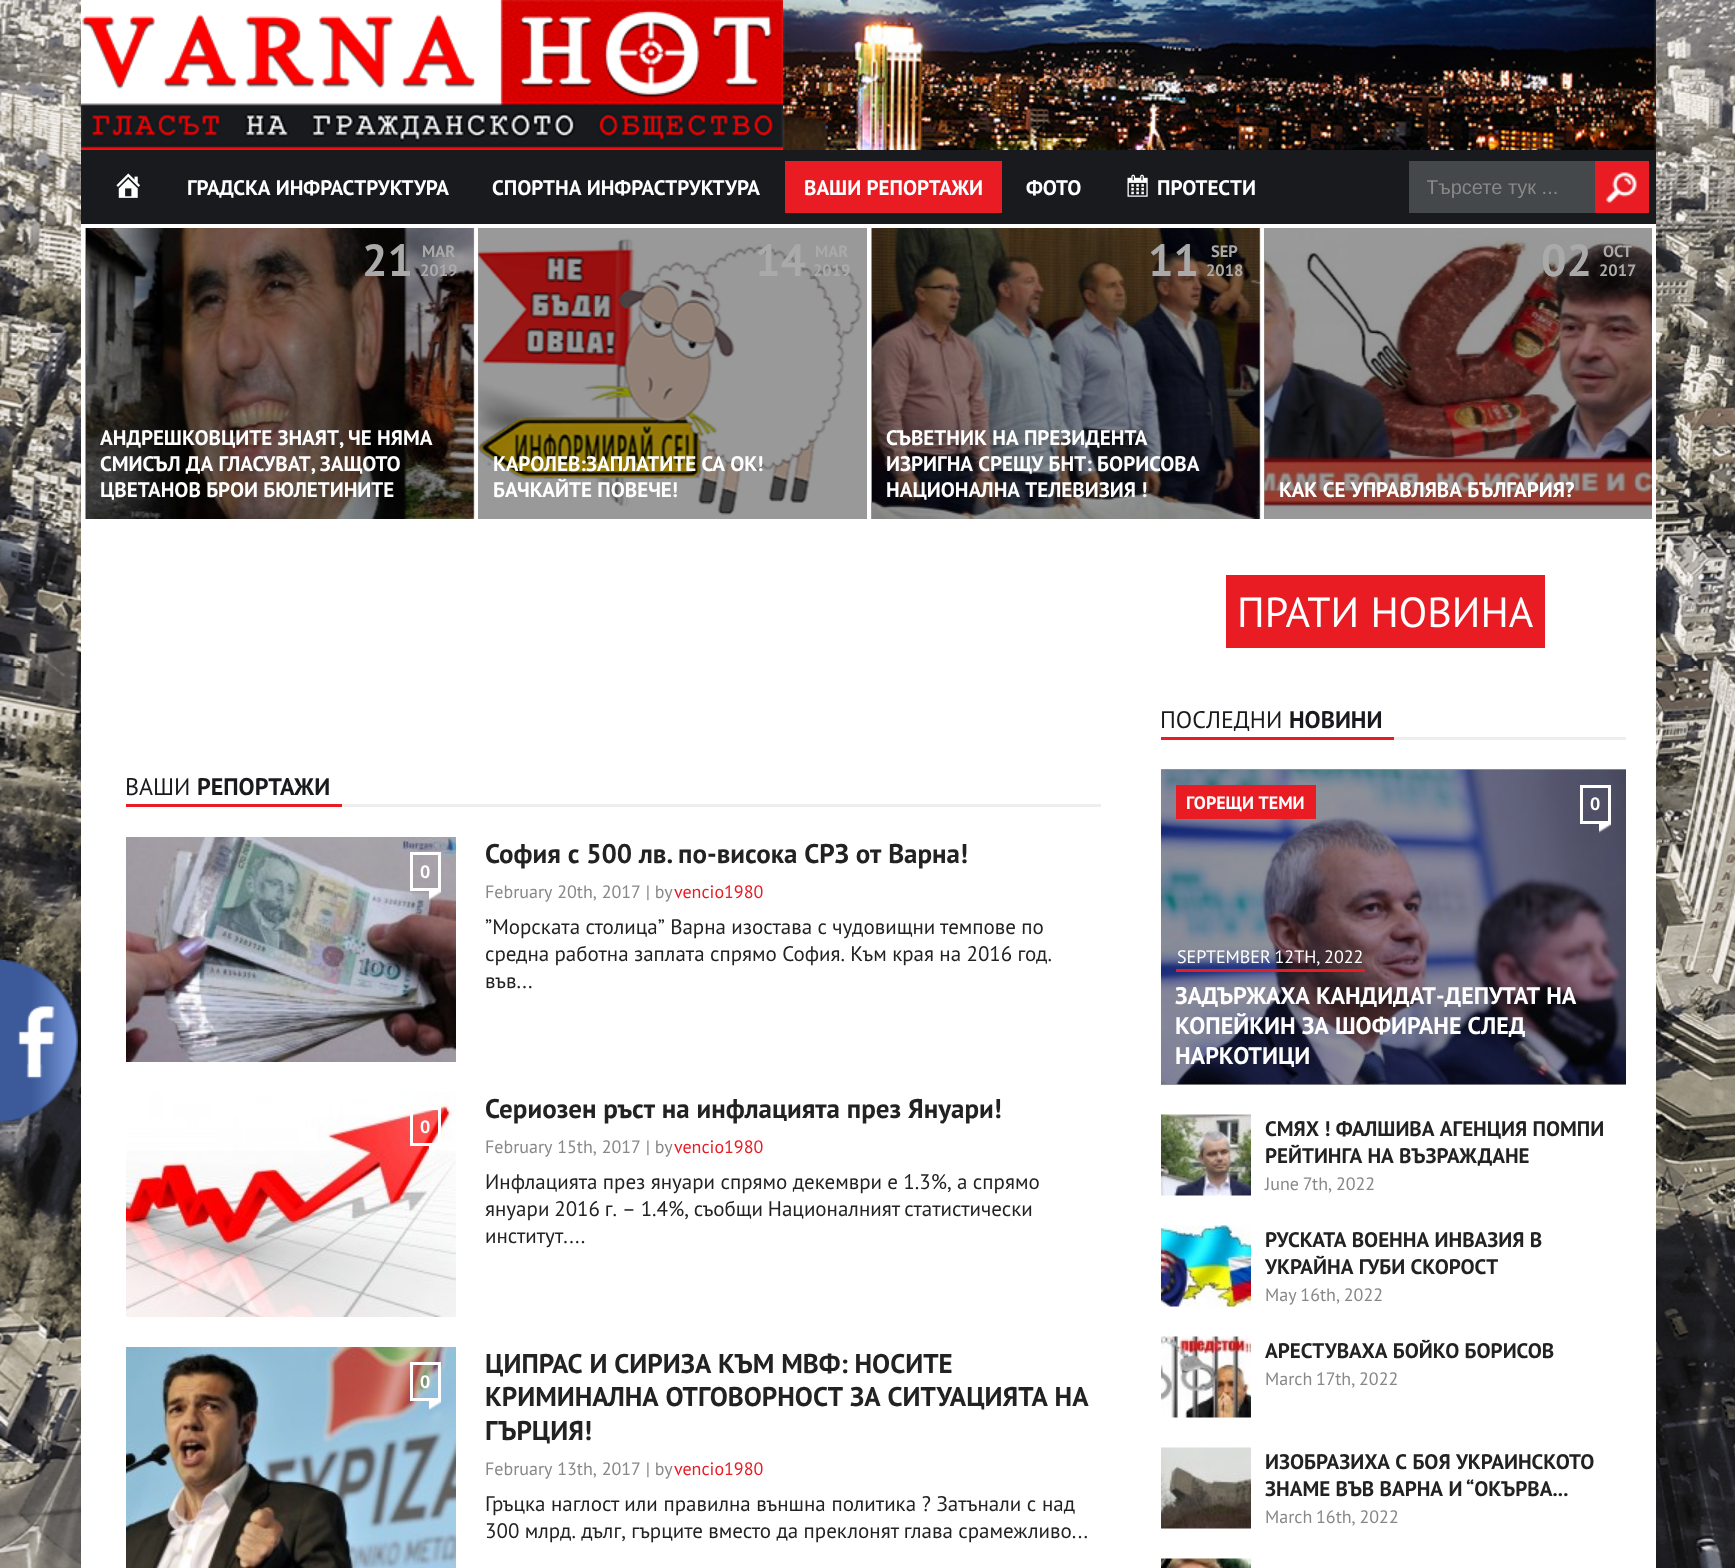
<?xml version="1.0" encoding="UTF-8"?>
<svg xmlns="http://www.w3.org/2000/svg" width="1735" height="1568">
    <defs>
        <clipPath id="clip1"><rect x="1427" y="176" width="150" height="22"/></clipPath>
    </defs>
    <rect width="100%" height="100%" fill="#FFFFFF"/>
    <image x="0" y="0" width="1735" height="1568" href="img_01.png"/>
    <rect x="81" y="0" width="1575" height="150" fill="#FFFFFF"/>
    <image x="81" y="0" width="702" height="150" href="img_02.png"/>
    <image x="783" y="0" width="873" height="150" href="img_03.png"/>
    <rect x="81" y="150" width="1575" height="74" fill="#191A1E"/>
    <image x="116" y="173" width="24" height="25" href="img_04.png"/>
    <text x="187" y="195" font-family="PT Sans" font-size="21" font-weight="700" fill="#FFFFFF">ГРАДСКА ИНФРАСТРУКТУРА</text>
    <text x="492" y="195" font-family="PT Sans" font-size="21" font-weight="700" fill="#FFFFFF">СПОРТНА ИНФРАСТРУКТУРА</text>
    <rect x="785" y="161" width="217" height="52" fill="#E91B23"/>
    <text x="804" y="195" font-family="PT Sans" font-size="21" font-weight="700" fill="#FFFFFF">ВАШИ РЕПОРТАЖИ</text>
    <text x="1026" y="195" font-family="PT Sans" font-size="21" font-weight="700" fill="#FFFFFF">ФОТО</text>
    <image x="1127" y="174" width="21" height="23" href="img_05.png"/>
    <text x="1157" y="195" font-family="PT Sans" font-size="21" font-weight="700" fill="#FFFFFF">ПРОТЕСТИ</text>
    <rect x="1409" y="161" width="186" height="52" fill="#44484B"/>
    <g clip-path="url(#clip1)">
        <text x="1426" y="194" font-family="Liberation Sans" font-size="20" fill="#888888">Търсете тук ...</text>
    </g>
    <rect x="1595" y="161" width="54" height="52" fill="#E91B23"/>
    <image x="1606" y="172" width="31" height="31" href="img_06.png"/>
    <image x="0" y="960" width="78" height="162" href="img_07.png"/>
    <rect x="81" y="224" width="1575" height="1344" fill="#FFFFFF"/>
    <image x="86" y="228" width="389" height="291" href="img_08.png"/>
    <rect x="85" y="228" width="389" height="291" fill="#000000" fill-opacity="0.4"/>
    <text x="362" y="276" font-family="PT Sans" font-size="45" font-weight="700" fill="#AAAAAA">21</text>
    <text x="422" y="257" font-family="PT Sans" font-size="16.5" font-weight="700" fill="#AAAAAA">MAR</text>
    <text x="420" y="276" font-family="PT Sans" font-size="16.5" font-weight="700" fill="#AAAAAA">2019</text>
    <text font-family="PT Sans" font-size="21" font-weight="700" fill="#FFFFFF">
        <tspan x="100" y="445">АНДРЕШКОВЦИТЕ ЗНАЯТ, ЧЕ НЯМА</tspan>
        <tspan x="100" y="471">СМИСЪЛ ДА ГЛАСУВАТ, ЗАЩОТО</tspan>
        <tspan x="100" y="497">ЦВЕТАНОВ БРОИ БЮЛЕТИНИТЕ</tspan>
    </text>
    <image x="478" y="238" width="385" height="277" href="img_09.png"/>
    <rect x="478" y="228" width="389" height="291" fill="#000000" fill-opacity="0.4"/>
    <text x="755" y="276" font-family="PT Sans" font-size="45" font-weight="700" fill="#AAAAAA">14</text>
    <text x="815" y="257" font-family="PT Sans" font-size="16.5" font-weight="700" fill="#AAAAAA">MAR</text>
    <text x="813" y="276" font-family="PT Sans" font-size="16.5" font-weight="700" fill="#AAAAAA">2019</text>
    <text font-family="PT Sans" font-size="21" font-weight="700" fill="#FFFFFF">
        <tspan x="493" y="471">КАРОЛЕВ:ЗАПЛАТИТЕ СА ОК!</tspan>
        <tspan x="493" y="497">БАЧКАЙТЕ ПОВЕЧЕ!</tspan>
    </text>
    <image x="872" y="228" width="389" height="291" href="img_10.png"/>
    <rect x="871" y="228" width="389" height="291" fill="#000000" fill-opacity="0.4"/>
    <text x="1148" y="276" font-family="PT Sans" font-size="45" font-weight="700" fill="#AAAAAA">11</text>
    <text x="1211" y="257" font-family="PT Sans" font-size="16.5" font-weight="700" fill="#AAAAAA">SEP</text>
    <text x="1206" y="276" font-family="PT Sans" font-size="16.5" font-weight="700" fill="#AAAAAA">2018</text>
    <text font-family="PT Sans" font-size="21" font-weight="700" fill="#FFFFFF">
        <tspan x="886" y="445">СЪВЕТНИК НА ПРЕЗИДЕНТА</tspan>
        <tspan x="886" y="471">ИЗРИГНА СРЕЩУ БНТ: БОРИСОВА</tspan>
        <tspan x="886" y="497">НАЦИОНАЛНА ТЕЛЕВИЗИЯ !</tspan>
    </text>
    <image x="1264" y="231" width="388" height="285" href="img_11.png"/>
    <rect x="1264" y="228" width="388" height="291" fill="#000000" fill-opacity="0.4"/>
    <text x="1541" y="276" font-family="PT Sans" font-size="45" font-weight="700" fill="#AAAAAA">02</text>
    <text x="1603" y="257" font-family="PT Sans" font-size="16.5" font-weight="700" fill="#AAAAAA">OCT</text>
    <text x="1599" y="276" font-family="PT Sans" font-size="16.5" font-weight="700" fill="#AAAAAA">2017</text>
    <text x="1279" y="497" font-family="PT Sans" font-size="21" font-weight="700" fill="#FFFFFF">КАК СЕ УПРАВЛЯВА БЪЛГАРИЯ?</text>
    <rect x="342" y="804" width="759" height="3" fill="#EEEEEE"/>
    <rect x="126" y="804" width="216" height="3" fill="#E91B23"/>
    <text x="125" y="795" font-family="PT Sans" font-size="24" fill="#191A1E">ВАШИ</text>
    <text x="197" y="795" font-family="PT Sans" font-size="24" font-weight="700" fill="#191A1E">РЕПОРТАЖИ</text>
    <text x="485" y="863" font-family="PT Sans" font-size="27" font-weight="700" fill="#222222">София с 500 лв. по-висока СРЗ от Варна!</text>
    <image x="126" y="837" width="330" height="225" href="img_12.png"/>
    <image x="429" y="891" width="12" height="9" href="img_13.png"/>
    <rect x="411.5" y="853.5" width="28" height="36" fill="none" stroke="#FFFFFF" stroke-width="3"/>
    <text x="420" y="878" font-family="PT Sans" font-size="18" font-weight="700" fill="#FFFFFF">0</text>
    <text x="485" y="898" font-family="PT Sans" font-size="18" fill="#888888">February 20th, 2017 | by</text>
    <text x="674" y="898" font-family="PT Sans" font-size="18" fill="#E91B23">vencio1980</text>
    <text font-family="PT Sans" font-size="21" fill="#222222">
        <tspan x="485" y="934" word-spacing="-0.25">”Морската столица” Варна изостава с чудовищни темпове по</tspan>
        <tspan x="485" y="961" word-spacing="-0.25">средна работна заплата спрямо София. Към края на 2016 год.</tspan>
        <tspan x="485" y="988">във...</tspan>
    </text>
    <text x="485" y="1118" font-family="PT Sans" font-size="27" font-weight="700" fill="#222222">Сериозен ръст на инфлацията през Януари!</text>
    <image x="126" y="1092" width="330" height="225" href="img_14.png"/>
    <image x="429" y="1146" width="9" height="7" href="img_15.png"/>
    <rect x="411.5" y="1108.5" width="28" height="36" fill="none" stroke="#FFFFFF" stroke-width="3"/>
    <text x="420" y="1133" font-family="PT Sans" font-size="18" font-weight="700" fill="#FFFFFF">0</text>
    <text x="485" y="1153" font-family="PT Sans" font-size="18" fill="#888888">February 15th, 2017 | by</text>
    <text x="674" y="1153" font-family="PT Sans" font-size="18" fill="#E91B23">vencio1980</text>
    <text font-family="PT Sans" font-size="21" fill="#222222">
        <tspan x="485" y="1189" word-spacing="-0.25">Инфлацията през януари спрямо декември е 1.3%, а спрямо</tspan>
        <tspan x="485" y="1216" word-spacing="-0.75">януари 2016 г. – 1.4%, съобщи Националният статистически</tspan>
        <tspan x="485" y="1243">институт....</tspan>
    </text>
    <image x="126" y="1347" width="330" height="221" href="img_16.png"/>
    <image x="429" y="1401" width="12" height="9" href="img_17.png"/>
    <rect x="411.5" y="1363.5" width="28" height="36" fill="none" stroke="#FFFFFF" stroke-width="3"/>
    <text x="420" y="1388" font-family="PT Sans" font-size="18" font-weight="700" fill="#FFFFFF">0</text>
    <text font-family="PT Sans" font-size="27" font-weight="700" fill="#222222">
        <tspan x="485" y="1373">ЦИПРАС И СИРИЗА КЪМ МВФ: НОСИТЕ</tspan>
        <tspan x="485" y="1406">КРИМИНАЛНА ОТГОВОРНОСТ ЗА СИТУАЦИЯТА НА</tspan>
        <tspan x="485" y="1440">ГЪРЦИЯ!</tspan>
    </text>
    <text x="485" y="1475" font-family="PT Sans" font-size="18" fill="#888888">February 13th, 2017 | by</text>
    <text x="674" y="1475" font-family="PT Sans" font-size="18" fill="#E91B23">vencio1980</text>
    <text font-family="PT Sans" font-size="21" fill="#222222">
        <tspan x="485" y="1511">Гръцка наглост или правилна външна политика ? Затънали с над</tspan>
        <tspan x="485" y="1538" word-spacing="-0.25">300 млрд. дълг, гърците вместо да преклонят глава срамежливо...</tspan>
    </text>
    <rect x="1226" y="575" width="319" height="73" fill="#E91B23"/>
    <text x="1237" y="627" font-family="PT Sans" font-size="42" fill="#FFFFFF">ПРАТИ НОВИНА</text>
    <rect x="1394" y="737" width="232" height="3" fill="#EEEEEE"/>
    <rect x="1161" y="737" width="233" height="3" fill="#E91B23"/>
    <text x="1160" y="728" font-family="PT Sans" font-size="24" fill="#191A1E">ПОСЛЕДНИ</text>
    <text x="1289" y="728" font-family="PT Sans" font-size="24" font-weight="700" fill="#191A1E">НОВИНИ</text>
    <image x="1161" y="769" width="465" height="316" href="img_18.png"/>
    <rect x="1161" y="769" width="465" height="316" fill="#000000" fill-opacity="0.4"/>
    <rect x="1176" y="785" width="140" height="34" fill="#E91B23"/>
    <text x="1186" y="809" font-family="PT Sans" font-size="18" font-weight="700" fill="#FFFFFF">ГОРЕЩИ ТЕМИ</text>
    <image x="1599" y="824" width="12" height="9" href="img_19.png"/>
    <rect x="1581.5" y="786.5" width="28" height="36" fill="none" stroke="#FFFFFF" stroke-width="3"/>
    <text x="1590" y="810" font-family="PT Sans" font-size="18" font-weight="700" fill="#FFFFFF">0</text>
    <text x="1177" y="963" word-spacing="-1" font-family="PT Sans" font-size="18" fill="#FFFFFF">SEPTEMBER 12TH, 2022</text>
    <rect x="1176" y="969" width="189" height="3" fill="#E91B23"/>
    <text font-family="PT Sans" font-size="24" font-weight="700" fill="#FFFFFF">
        <tspan x="1175" y="1004">ЗАДЪРЖАХА КАНДИДАТ-ДЕПУТАТ НА</tspan>
        <tspan x="1175" y="1034">КОПЕЙКИН ЗА ШОФИРАНЕ СЛЕД</tspan>
        <tspan x="1175" y="1064">НАРКОТИЦИ</tspan>
    </text>
    <image x="1161" y="1114" width="90" height="82" href="img_20.png"/>
    <text font-family="PT Sans" font-size="21" font-weight="700" fill="#222222">
        <tspan x="1265" y="1136">СМЯХ ! ФАЛШИВА АГЕНЦИЯ ПОМПИ</tspan>
        <tspan x="1265" y="1163">РЕЙТИНГА НА ВЪЗРАЖДАНЕ</tspan>
    </text>
    <text x="1265" y="1190" word-spacing="-1" font-family="PT Sans" font-size="18" fill="#888888">June 7th, 2022</text>
    <image x="1161" y="1225" width="90" height="82" href="img_21.png"/>
    <text font-family="PT Sans" font-size="21" font-weight="700" fill="#222222">
        <tspan x="1265" y="1247">РУСКАТА ВОЕННА ИНВАЗИЯ В</tspan>
        <tspan x="1265" y="1274">УКРАЙНА ГУБИ СКОРОСТ</tspan>
    </text>
    <text x="1265" y="1301" word-spacing="-1" font-family="PT Sans" font-size="18" fill="#888888">May 16th, 2022</text>
    <image x="1161" y="1336" width="90" height="82" href="img_22.png"/>
    <text x="1265" y="1358" font-family="PT Sans" font-size="21" font-weight="700" fill="#222222">АРЕСТУВАХА БОЙКО БОРИСОВ</text>
    <text x="1265" y="1385" word-spacing="-1" font-family="PT Sans" font-size="18" fill="#888888">March 17th, 2022</text>
    <image x="1161" y="1447" width="90" height="82" href="img_23.png"/>
    <text font-family="PT Sans" font-size="21" font-weight="700" fill="#222222">
        <tspan x="1265" y="1469">ИЗОБРАЗИХА С БОЯ УКРАИНСКОТО</tspan>
        <tspan x="1265" y="1496">ЗНАМЕ ВЪВ ВАРНА И “ОКЪРВА...</tspan>
    </text>
    <text x="1265" y="1523" word-spacing="-1" font-family="PT Sans" font-size="18" fill="#888888">March 16th, 2022</text>
    <image x="1161" y="1558" width="90" height="10" href="img_24.png"/>
</svg>
